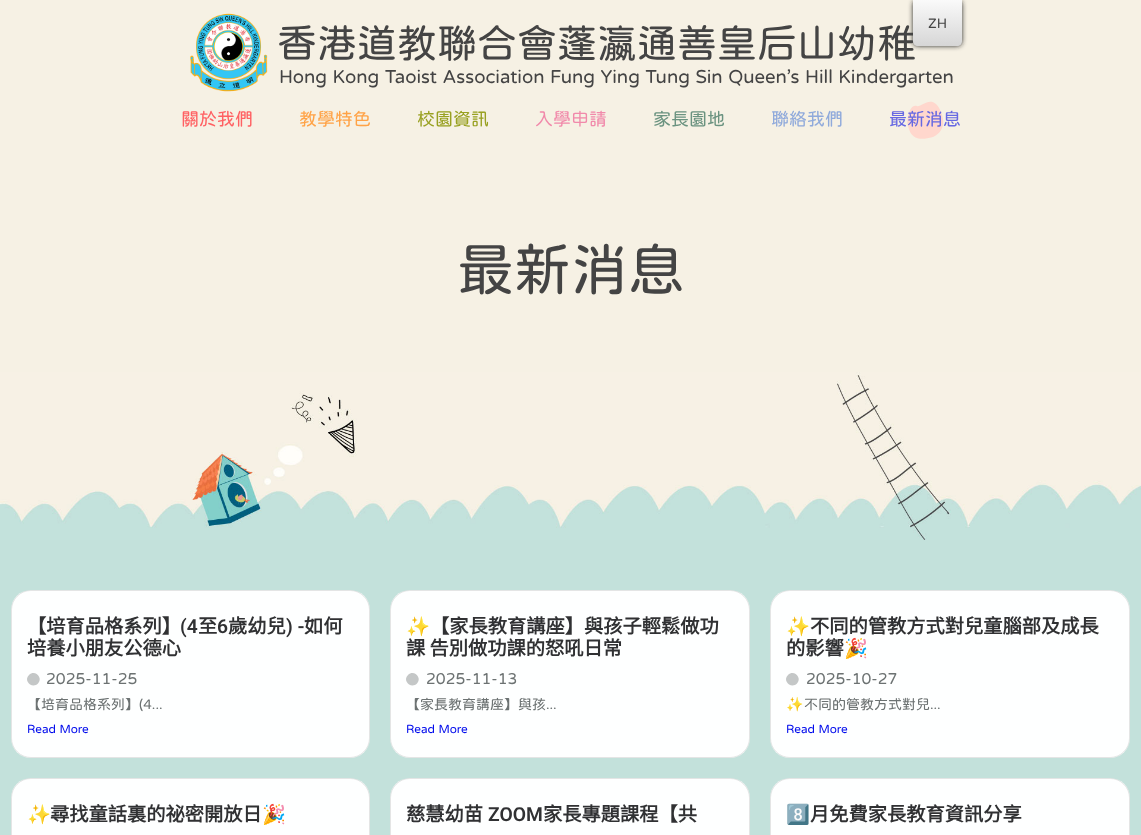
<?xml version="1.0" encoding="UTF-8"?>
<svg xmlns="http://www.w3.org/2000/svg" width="1141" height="835">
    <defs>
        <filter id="blur1" x="-50%" y="-200%" width="200%" height="500%"><feGaussianBlur stdDeviation="2.5"/></filter>
        <linearGradient id="g1" gradientUnits="userSpaceOnUse" x1="938" y1="46" x2="938" y2="0"><stop offset="0" stop-color="#D6D6D6"/><stop offset="1" stop-color="#FAFAFA"/></linearGradient>
    </defs>
    <rect width="100%" height="100%" fill="#F6F1E4"/>
    <rect x="913" y="0" width="49" height="46" rx="5" fill="#212121" filter="url(#blur1)"/>
    <text x="277" y="57" font-family="'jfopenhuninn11'" font-size="40" fill="#444444">香港道教聯合會蓬瀛通善皇后山幼稚</text>
    <path d="M 913 0 H 962 V 41 C 962 44 960 46 957 46 H 918 C 915 46 913 44 913 41 Z" fill="url(#g1)"/>
    <text x="928" y="28" font-family="'jfopenhuninn11'" font-size="14" fill="#444444">ZH</text>
    <image x="190" y="13" width="78" height="79" href="img_01.png"/>
    <text x="279" y="83" font-family="'jfopenhuninn11'" font-size="19" fill="#444444">Hong Kong Taoist Association Fung Ying Tung Sin Queen’s Hill Kindergarten</text>
    <text x="181" y="125" font-family="'jfopenhuninn11'" font-size="18" fill="#FF6163">關於我們</text>
    <text x="299" y="125" font-family="'jfopenhuninn11'" font-size="18" fill="#FFA347">教學特色</text>
    <text x="417" y="125" font-family="'jfopenhuninn11'" font-size="18" fill="#99A122">校園資訊</text>
    <text x="535" y="125" font-family="'jfopenhuninn11'" font-size="18" fill="#F18AAB">入學申請</text>
    <text x="653" y="125" font-family="'jfopenhuninn11'" font-size="18" fill="#6B9380">家長園地</text>
    <text x="771" y="125" font-family="'jfopenhuninn11'" font-size="18" fill="#90AADB">聯絡我們</text>
    <path d="M 933 137 C 933 137 949 131 941 112 C 933 92 921 108 917 106 C 909 103 906 122 908 126 C 910 132 912 143 933 137 Z" fill="#FFD7CD"/>
    <text x="889" y="125" font-family="'jfopenhuninn11'" font-size="18" fill="#6668E2">最新消息</text>
    <image x="0" y="372" width="1141" height="168" href="img_02.png"/>
    <text x="457" y="289" font-family="'jfopenhuninn11'" font-size="57" fill="#444444">最新消息</text>
    <rect x="0" y="540" width="1141" height="295" fill="#C3E1DB"/>
    <rect x="11" y="590" width="359" height="168" rx="20" fill="#FEFFFF"/>
    <rect x="11.5" y="590.5" width="358" height="167" rx="19.5" fill="none" stroke="#000000" stroke-opacity="0.1"/>
    <text x="27" y="633" font-family="Noto Sans CJK HK" font-size="19.25" font-weight="700" fill="#303133">【培育品格系列】</text>
    <text x="180" y="633" font-family="Roboto" font-size="19.25" font-weight="600" fill="#303133">(4</text>
    <text x="198" y="633" font-family="Noto Sans CJK HK" font-size="19.25" font-weight="700" fill="#303133">至</text>
    <text x="217" y="633" font-family="Roboto" font-size="19.25" font-weight="600" fill="#303133">6</text>
    <text x="228" y="633" font-family="Noto Sans CJK HK" font-size="19.25" font-weight="700" fill="#303133">歲幼兒</text>
    <text x="286" y="633" font-family="Roboto" font-size="19.25" font-weight="600" fill="#303133">) -</text>
    <text x="304" y="633" font-family="Noto Sans CJK HK" font-size="19.25" font-weight="700" fill="#303133">如何</text>
    <text x="27" y="655" font-family="Noto Sans CJK HK" font-size="19.25" font-weight="700" fill="#303133">培養小朋友公德心</text>
    <path d="M 29 675 C 35 669 43.5 678 38 683.5 C 32 689.5 23 680.5 29 675 Z" fill="#C4C7C7"/>
    <text x="46" y="684" font-family="'jfopenhuninn11'" font-size="16" fill="#6C7272">2025-11-25</text>
    <text x="27" y="709" font-family="'jfopenhuninn11'" font-size="14" fill="#6C7272">【培育品格系列】(4...</text>
    <text x="27" y="733" font-family="'jfopenhuninn11'" font-size="12" fill="#000BEC">Read More</text>
    <rect x="390" y="590" width="360" height="168" rx="20" fill="#FEFFFF"/>
    <rect x="390.5" y="590.5" width="359" height="167" rx="19.5" fill="none" stroke="#000000" stroke-opacity="0.1"/>
    <text x="406" y="633" font-family="Noto Color Emoji" font-size="19.25" font-weight="700" fill="#303133">✨</text>
    <text x="430" y="633" font-family="Noto Sans CJK HK" font-size="19.25" font-weight="700" fill="#303133">【家長教育講座】與孩子輕鬆做功</text>
    <text x="406" y="655" font-family="Noto Sans CJK HK" font-size="19.25" font-weight="700" fill="#303133">課 告別做功課的怒吼日常</text>
    <path d="M 408 675 C 414 669 422.5 678 417 683.5 C 411 689.5 402 680.5 408 675 Z" fill="#C4C7C7"/>
    <text x="426" y="684" font-family="'jfopenhuninn11'" font-size="16" fill="#6C7272">2025-11-13</text>
    <text x="406" y="709" font-family="'jfopenhuninn11'" font-size="14" fill="#6C7272">【家長教育講座】與孩...</text>
    <text x="406" y="733" font-family="'jfopenhuninn11'" font-size="12" fill="#000BEC">Read More</text>
    <rect x="770" y="590" width="360" height="168" rx="20" fill="#FEFFFF"/>
    <rect x="770.5" y="590.5" width="359" height="167" rx="19.5" fill="none" stroke="#000000" stroke-opacity="0.1"/>
    <text x="786" y="633" font-family="Noto Color Emoji" font-size="19.25" font-weight="700" fill="#303133">✨</text>
    <text x="810" y="633" font-family="Noto Sans CJK HK" font-size="19.25" font-weight="700" fill="#303133">不同的管教方式對兒童腦部及成長</text>
    <text x="786" y="655" font-family="Noto Sans CJK HK" font-size="19.25" font-weight="700" fill="#303133">的影響</text>
    <text x="844" y="655" font-family="Noto Color Emoji" font-size="19.25" font-weight="700" fill="#303133">🎉</text>
    <path d="M 788 675 C 794 669 802.5 678 797 683.5 C 791 689.5 782 680.5 788 675 Z" fill="#C4C7C7"/>
    <text x="806" y="684" font-family="'jfopenhuninn11'" font-size="16" fill="#6C7272">2025-10-27</text>
    <text x="786" y="709" font-family="Noto Color Emoji" font-size="14" fill="#6C7272">✨</text>
    <text x="804" y="709" font-family="'jfopenhuninn11'" font-size="14" fill="#6C7272">不同的管教方式對兒...</text>
    <text x="786" y="733" font-family="'jfopenhuninn11'" font-size="12" fill="#000BEC">Read More</text>
    <rect x="11" y="778" width="359" height="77" rx="20" fill="#FEFFFF"/>
    <rect x="11.5" y="778.5" width="358" height="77" rx="19.5" fill="none" stroke="#000000" stroke-opacity="0.1"/>
    <text x="27" y="821" font-family="Noto Color Emoji" font-size="19.25" font-weight="700" fill="#303133">✨</text>
    <text x="50" y="821" font-family="Noto Sans CJK HK" font-size="19.25" font-weight="700" fill="#303133">尋找童話裏的祕密開放日</text>
    <text x="262" y="821" font-family="Noto Color Emoji" font-size="19.25" font-weight="700" fill="#303133">🎉</text>
    <rect x="390" y="778" width="360" height="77" rx="20" fill="#FEFFFF"/>
    <rect x="390.5" y="778.5" width="359" height="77" rx="19.5" fill="none" stroke="#000000" stroke-opacity="0.1"/>
    <text x="406" y="821" font-family="Noto Sans CJK HK" font-size="19.25" font-weight="700" fill="#303133">慈慧幼苗</text>
    <text x="488" y="821" font-family="Roboto" font-size="19.25" font-weight="600" fill="#303133">ZOOM</text>
    <text x="543" y="821" font-family="Noto Sans CJK HK" font-size="19.25" font-weight="700" fill="#303133">家長專題課程【共</text>
    <rect x="770" y="778" width="360" height="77" rx="20" fill="#FEFFFF"/>
    <rect x="770.5" y="778.5" width="359" height="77" rx="19.5" fill="none" stroke="#000000" stroke-opacity="0.1"/>
    <text x="786" y="821" font-family="Noto Color Emoji" font-size="19.25" font-weight="700" fill="#303133">8️⃣</text>
    <text x="810" y="821" font-family="Noto Sans CJK HK" font-size="19.25" font-weight="700" fill="#303133">月免費家長教育資訊分享</text>
</svg>
